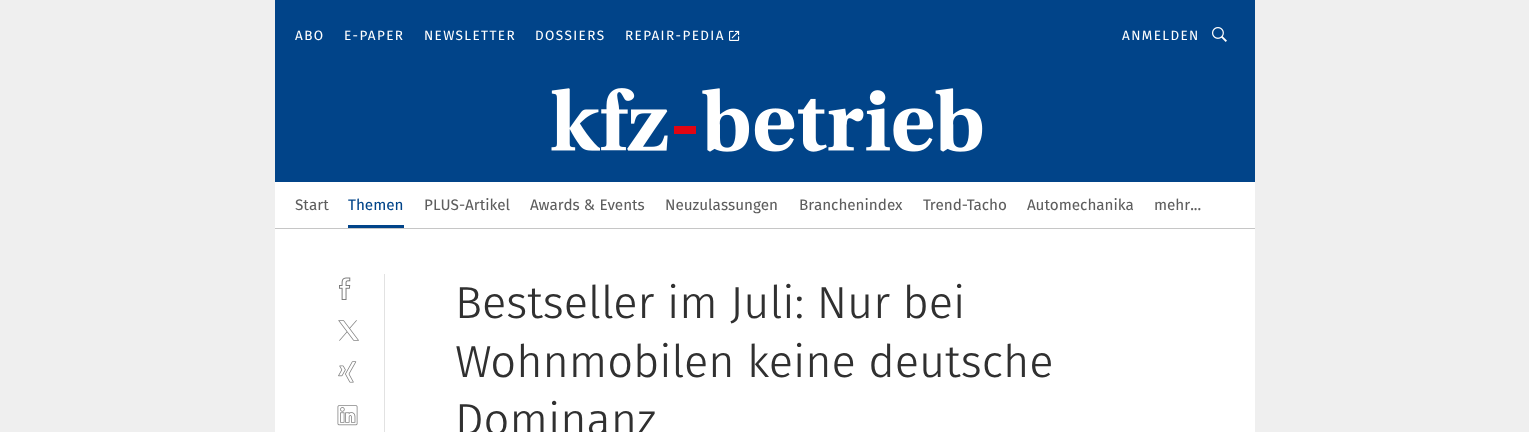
(async () => {
    const canvas = document.querySelector("canvas");
    canvas.width = 1529;
    canvas.height = 432;
    const context = canvas.getContext("2d");
    context.miterLimit = 4;
    context.fontKerning = "normal";
    function write(s, x, y, font, color) {
        context.font = font;
        context.fillStyle = color;
        context.fillText(s, x, y);
    }
    function block(x, y, w, h, color) {
        context.fillStyle = color;
        context.fillRect(x, y, w, h);
    }
    async function photo(src, x, y, w, h) {
        const img = new Image();
        img.src = src;
        await img.decode();
        context.drawImage(img, x, y, w, h);
    }

    block(0, 0, 1529, 432, "rgb(239, 239, 239)");
    block(275, 229, 980, 203, "rgb(255, 255, 255)");
    block(275, 228, 980, 1, "rgb(198, 198, 198)");
    block(275, 0, 980, 182, "rgb(1, 68, 137)");
    context.letterSpacing = "1.4px";
    write("ABO", 295, 40, "13.5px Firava", "rgb(255, 255, 255)");
    write("E-PAPER", 344, 40, "13.5px Firava", "rgb(255, 255, 255)");
    write("NEWSLETTER", 424, 40, "13.5px Firava", "rgb(255, 255, 255)");
    write("DOSSIERS", 535, 40, "13.5px Firava", "rgb(255, 255, 255)");
    write("REPAIR-PEDIA", 625, 40, "13.5px Firava", "rgb(255, 255, 255)");
    await photo("media/1.png", 729, 30, 11, 11);
    write("ANMELDEN", 1122, 40, "13.5px Firava", "rgb(255, 255, 255)");
    await photo("media/2.png", 1212, 27, 15, 15);
    await photo("media/3.png", 551, 88, 432, 64);
    block(275, 182, 980, 46, "rgb(255, 255, 255)");
    context.letterSpacing = "0px";
    write("Start", 295, 210, "15.25px 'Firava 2'", "rgb(94, 94, 94)");
    block(348, 225, 56, 3, "rgb(1, 68, 137)");
    write("Themen", 348, 210, "15.25px 'Firava 2'", "rgb(1, 68, 137)");
    write("PLUS-Artikel", 424, 210, "15.25px 'Firava 2'", "rgb(94, 94, 94)");
    write("Awards & Events", 530, 210, "15.25px 'Firava 2'", "rgb(94, 94, 94)");
    write("Neuzulassungen", 665, 210, "15.25px 'Firava 2'", "rgb(94, 94, 94)");
    write("Branchenindex", 799, 210, "15.25px 'Firava 2'", "rgb(94, 94, 94)");
    write("Trend-Tacho", 923, 210, "15.25px 'Firava 2'", "rgb(94, 94, 94)");
    write("Automechanika", 1027, 210, "15.25px 'Firava 2'", "rgb(94, 94, 94)");
    write("mehr...", 1154, 210, "15.25px 'Firava 2'", "rgb(94, 94, 94)");
    block(384, 274, 1, 158, "rgb(226, 226, 226)");
    await photo("media/4.png", 339, 277, 12, 23);
    await photo("media/5.png", 338, 320, 21, 21);
    await photo("media/6.png", 338, 361, 19, 22);
    await photo("media/7.png", 337, 405, 21, 21);
    write("Bestseller im Juli: Nur bei", 455, 318, "300 45px Firava", "rgb(48, 48, 48)");
    write("Wohnmobilen keine deutsche", 455, 377, "300 45px Firava", "rgb(48, 48, 48)");
    write("Dominanz", 455, 435, "300 45px Firava", "rgb(48, 48, 48)");
})();
